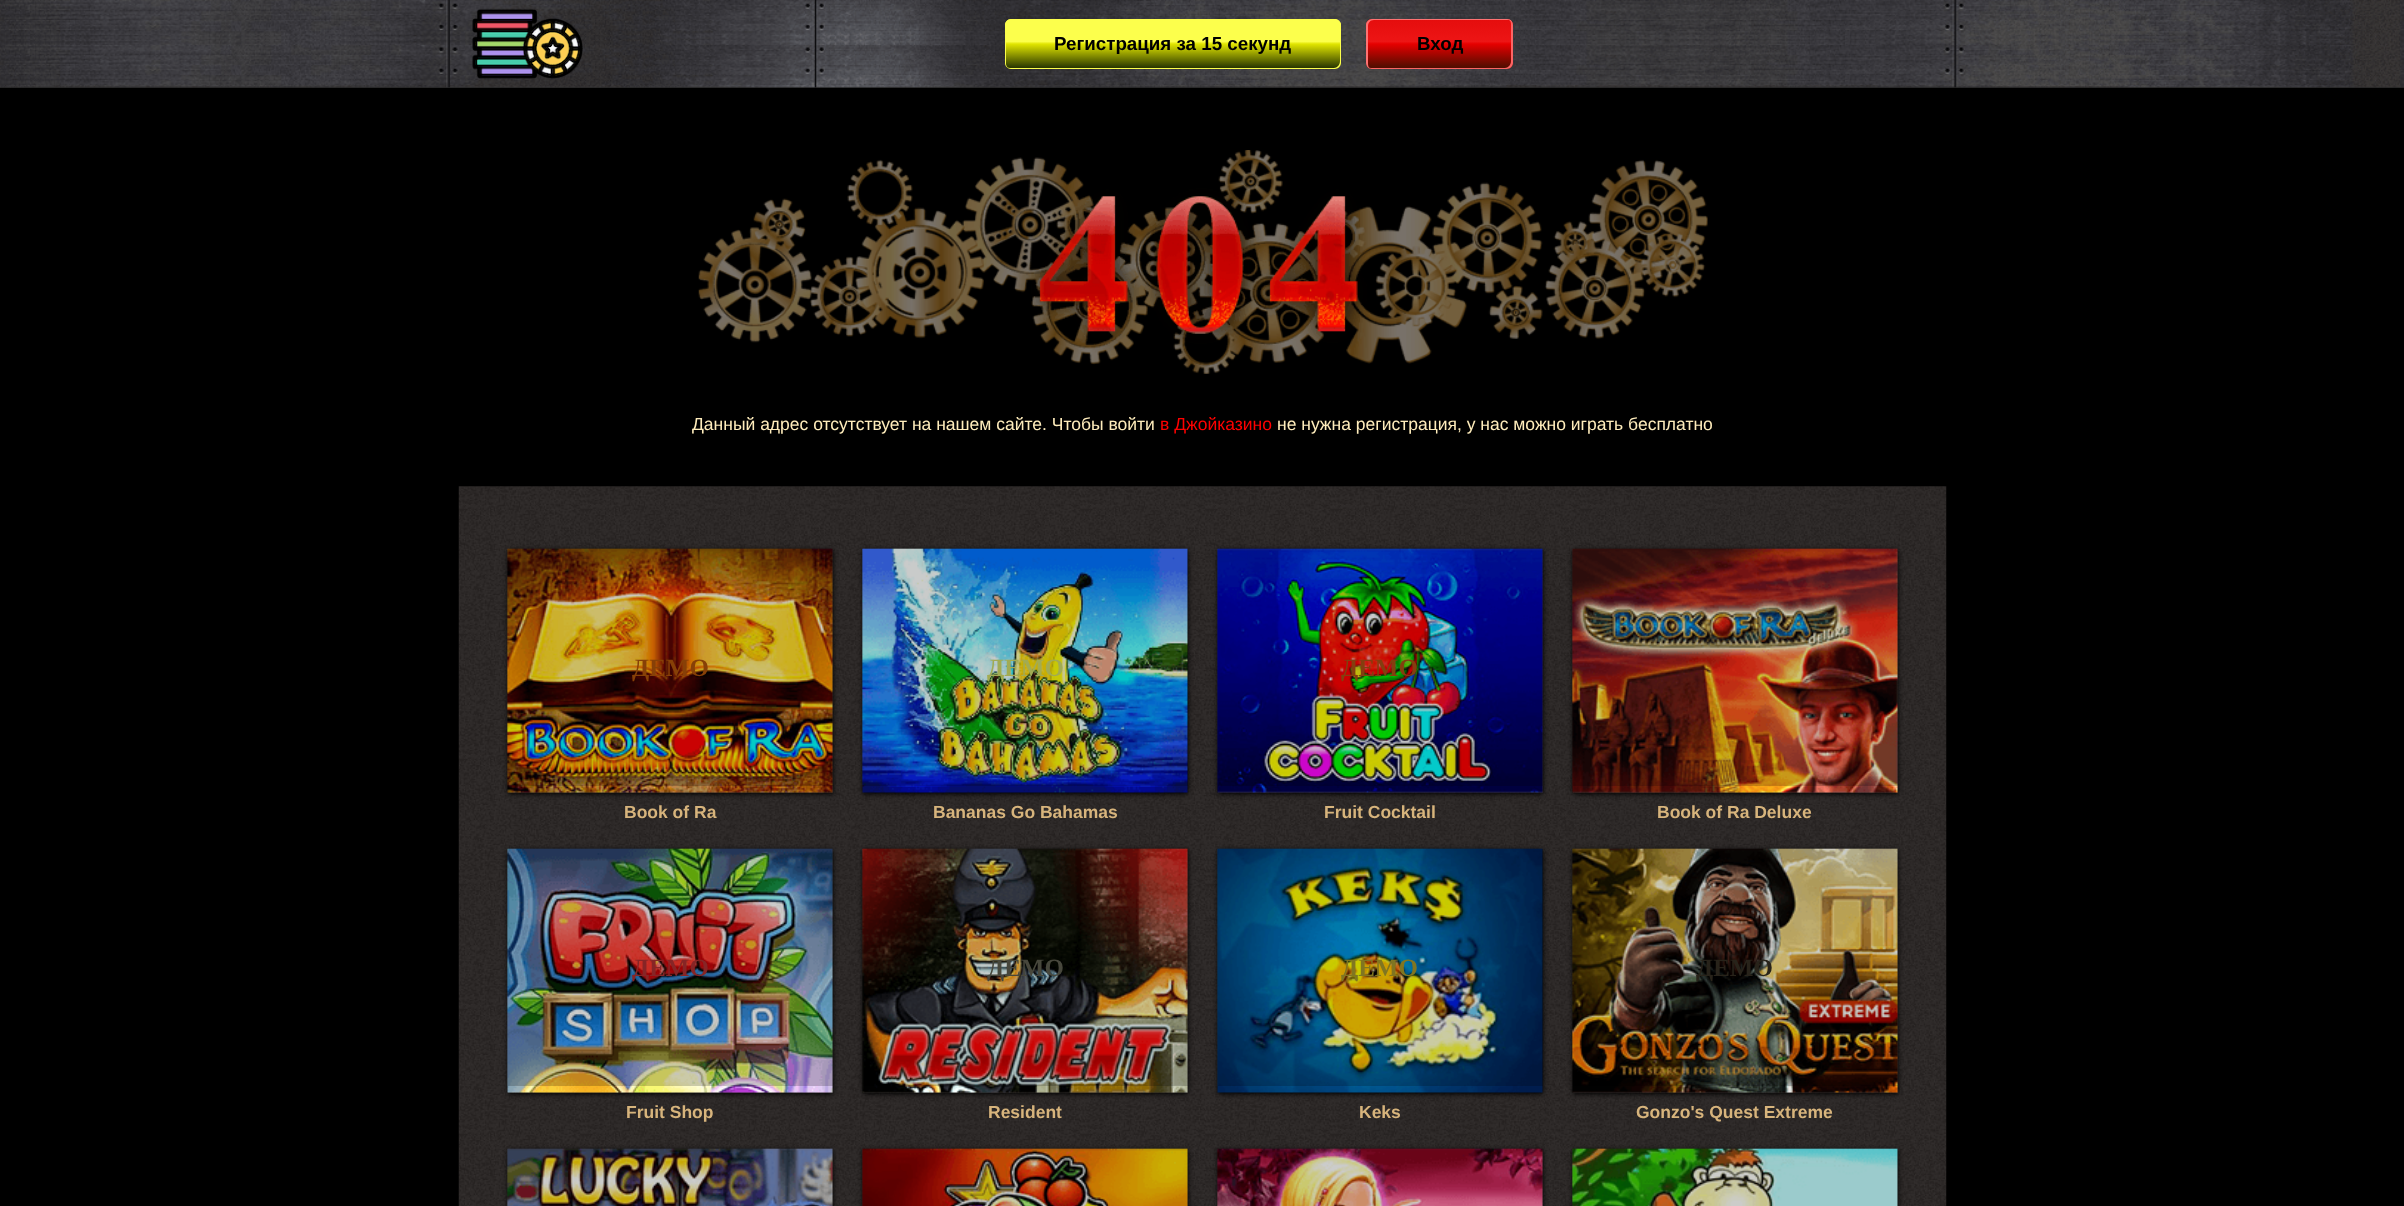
(async () => {
    const canvas = document.querySelector("canvas");
    canvas.width = 2404;
    canvas.height = 1206;
    const context = canvas.getContext("2d");
    context.miterLimit = 4;
    context.fontKerning = "normal";
    function write(s, x, y, font, color) {
        context.font = font;
        context.fillStyle = color;
        context.fillText(s, x, y);
    }
    function block(x, y, w, h, color) {
        context.fillStyle = color;
        context.fillRect(x, y, w, h);
    }
    async function photo(src, x, y, w, h) {
        const img = new Image();
        img.src = src;
        await img.decode();
        context.drawImage(img, x, y, w, h);
    }
    let gradient;

    block(0, 0, 2404, 1206, "rgb(0, 0, 0)");
    await photo("media/1.png", 0, 0, 2404, 88);
    await photo("media/2.png", 472, 8, 111, 71);
    gradient = context.createLinearGradient(1173, 19, 1173, 69);
    gradient.addColorStop(0, "rgb(252, 255, 76)");
    gradient.addColorStop(0.45, "rgb(252, 255, 76)");
    gradient.addColorStop(0.5, "rgb(225, 229, 0)");
    gradient.addColorStop(1, "rgb(31, 45, 0)");
    context.fillStyle = gradient;
    context.beginPath();
    context.roundRect(1005, 19, 336, 50, 6);
    context.fill();
    context.fillStyle = "rgb(252, 255, 76)";
    context.beginPath();
    context.moveTo(1006, 66);
    context.bezierCurveTo(1007, 68, 1009, 69, 1011, 69);
    context.lineTo(1335, 69);
    context.bezierCurveTo(1338, 69, 1341, 66, 1341, 63);
    context.lineTo(1341, 25);
    context.bezierCurveTo(1341, 23, 1340, 22, 1339, 21);
    context.bezierCurveTo(1340, 21, 1340, 23, 1340, 24);
    context.lineTo(1340, 61);
    context.bezierCurveTo(1340, 65, 1337, 68, 1334, 68);
    context.lineTo(1010, 68);
    context.bezierCurveTo(1008, 68, 1007, 67, 1006, 66);
    context.closePath();
    context.fill();
    context.beginPath();
    context.moveTo(1012, 20);
    context.lineTo(1336, 20);
    context.lineTo(1339, 21);
    context.bezierCurveTo(1338, 20, 1337, 19, 1335, 19);
    context.lineTo(1011, 19);
    context.bezierCurveTo(1008, 19, 1005, 22, 1005, 25);
    context.lineTo(1005, 63);
    context.bezierCurveTo(1005, 65, 1006, 67, 1008, 68);
    context.bezierCurveTo(1007, 67, 1006, 65, 1006, 64);
    context.lineTo(1006, 26);
    context.bezierCurveTo(1006, 23, 1009, 20, 1012, 20);
    context.closePath();
    context.fill();
    write("Регистрация за 15 секунд", 1054, 50, "bold 18.75px Liberation Sans", "rgb(0, 0, 0)");
    gradient = context.createLinearGradient(1439, 19, 1439, 69);
    gradient.addColorStop(0, "rgb(229, 13, 13)");
    gradient.addColorStop(0.45, "rgb(237, 21, 21)");
    gradient.addColorStop(0.5, "rgb(230, 0, 0)");
    gradient.addColorStop(1, "rgb(71, 14, 0)");
    context.fillStyle = gradient;
    context.beginPath();
    context.roundRect(1366, 19, 147, 50, 6);
    context.fill();
    context.fillStyle = "rgb(253, 100, 100)";
    context.beginPath();
    context.moveTo(1367, 66);
    context.bezierCurveTo(1368, 68, 1370, 69, 1372, 69);
    context.lineTo(1507, 69);
    context.bezierCurveTo(1510, 69, 1513, 66, 1513, 63);
    context.lineTo(1513, 25);
    context.bezierCurveTo(1513, 22, 1511, 20, 1509, 19);
    context.bezierCurveTo(1510, 20, 1511, 22, 1511, 24);
    context.lineTo(1511, 61);
    context.bezierCurveTo(1511, 65, 1508, 68, 1505, 68);
    context.lineTo(1371, 68);
    context.bezierCurveTo(1369, 68, 1368, 67, 1367, 66);
    context.closePath();
    context.fill();
    context.fillStyle = "rgb(255, 114, 114)";
    context.beginPath();
    context.moveTo(1374, 20);
    context.lineTo(1509, 20);
    context.lineTo(1512, 22);
    context.bezierCurveTo(1511, 20, 1509, 19, 1507, 19);
    context.lineTo(1372, 19);
    context.bezierCurveTo(1369, 19, 1366, 22, 1366, 25);
    context.lineTo(1366, 63);
    context.bezierCurveTo(1366, 66, 1368, 68, 1370, 69);
    context.bezierCurveTo(1369, 68, 1368, 66, 1368, 64);
    context.lineTo(1368, 26);
    context.bezierCurveTo(1368, 23, 1370, 20, 1374, 20);
    context.closePath();
    context.fill();
    write("Вход", 1417, 50, "bold 18.75px Liberation Sans", "rgb(0, 0, 0)");
    await photo("media/3.png", 698, 150, 1010, 224);
    write("Данный адрес отсутствует на нашем сайте. Чтобы войти", 692, 430, "17.5px Liberation Sans", "rgb(255, 237, 188)");
    write("в Джойказино", 1160, 430, "17.5px Liberation Sans", "rgb(255, 0, 0)");
    write("не нужна регистрация, у нас можно играть бесплатно", 1277, 430, "17.5px Liberation Sans", "rgb(255, 237, 188)");
    await photo("media/4.png", 458, 486, 1489, 720);
    context.save();
    context.beginPath();
    context.moveTo(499, 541);
    context.lineTo(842, 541);
    context.lineTo(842, 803);
    context.lineTo(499, 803);
    context.closePath();
    context.moveTo(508, 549);
    context.lineTo(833, 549);
    context.lineTo(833, 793);
    context.lineTo(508, 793);
    context.closePath();
    context.clip("evenodd");
    context.fillStyle = "rgb(0, 0, 0)";
    context.filter = "blur(2.5px)";
    context.beginPath();
    context.rect(508, 550, 325, 244);
    context.fill();
    context.filter = "none";
    context.restore();
    await photo("media/5.png", 507, 548, 326, 245);
    block(508, 549, 325, 237, "rgba(0, 0, 0, 0.2)");
    write("ДЕМО", 632, 676, "bold 25px Liberation Serif", "rgb(135, 64, 7)");
    write("Book of Ra", 624, 818, "bold 17.5px Liberation Sans", "rgb(215, 180, 124)");
    context.fillStyle = "rgb(0, 0, 0)";
    context.filter = "blur(2.5px)";
    context.beginPath();
    context.rect(863, 550, 325, 244);
    context.fill();
    context.filter = "none";
    await photo("media/6.png", 862, 548, 326, 245);
    block(863, 549, 325, 237, "rgba(0, 0, 0, 0.2)");
    write("ДЕМО", 987, 676, "bold 25px Liberation Serif", "rgb(162, 171, 83)");
    write("Bananas Go Bahamas", 933, 818, "bold 17.5px Liberation Sans", "rgb(215, 180, 124)");
    context.save();
    context.beginPath();
    context.moveTo(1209, 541);
    context.lineTo(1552, 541);
    context.lineTo(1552, 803);
    context.lineTo(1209, 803);
    context.closePath();
    context.moveTo(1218, 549);
    context.lineTo(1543, 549);
    context.lineTo(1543, 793);
    context.lineTo(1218, 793);
    context.closePath();
    context.clip("evenodd");
    context.fillStyle = "rgb(0, 0, 0)";
    context.filter = "blur(2.5px)";
    context.beginPath();
    context.rect(1218, 550, 325, 244);
    context.fill();
    context.filter = "none";
    context.restore();
    await photo("media/7.png", 1217, 548, 326, 245);
    block(1218, 549, 325, 237, "rgba(0, 0, 0, 0.2)");
    write("ДЕМО", 1341, 676, "bold 25px Liberation Serif", "rgb(132, 62, 15)");
    write("Fruit Cocktail", 1324, 818, "bold 17.5px Liberation Sans", "rgb(215, 180, 124)");
    context.save();
    context.beginPath();
    context.moveTo(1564, 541);
    context.lineTo(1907, 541);
    context.lineTo(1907, 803);
    context.lineTo(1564, 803);
    context.closePath();
    context.moveTo(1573, 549);
    context.lineTo(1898, 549);
    context.lineTo(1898, 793);
    context.lineTo(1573, 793);
    context.closePath();
    context.clip("evenodd");
    context.fillStyle = "rgb(0, 0, 0)";
    context.filter = "blur(2.5px)";
    context.beginPath();
    context.rect(1573, 550, 325, 244);
    context.fill();
    context.filter = "none";
    context.restore();
    await photo("media/8.png", 1572, 548, 326, 245);
    block(1573, 549, 325, 237, "rgba(0, 0, 0, 0.2)");
    write("Book of Ra Deluxe", 1657, 818, "bold 17.5px Liberation Sans", "rgb(215, 180, 124)");
    context.save();
    context.beginPath();
    context.moveTo(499, 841);
    context.lineTo(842, 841);
    context.lineTo(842, 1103);
    context.lineTo(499, 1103);
    context.closePath();
    context.moveTo(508, 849);
    context.lineTo(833, 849);
    context.lineTo(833, 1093);
    context.lineTo(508, 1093);
    context.closePath();
    context.clip("evenodd");
    context.fillStyle = "rgb(0, 0, 0)";
    context.filter = "blur(2.5px)";
    context.beginPath();
    context.rect(508, 850, 325, 244);
    context.fill();
    context.filter = "none";
    context.restore();
    await photo("media/9.png", 507, 848, 326, 245);
    block(508, 849, 325, 237, "rgba(0, 0, 0, 0.2)");
    write("ДЕМО", 632, 976, "bold 25px Liberation Serif", "rgb(135, 37, 38)");
    write("Fruit Shop", 626, 1118, "bold 17.5px Liberation Sans", "rgb(215, 180, 124)");
    context.save();
    context.beginPath();
    context.moveTo(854, 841);
    context.lineTo(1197, 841);
    context.lineTo(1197, 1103);
    context.lineTo(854, 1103);
    context.closePath();
    context.moveTo(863, 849);
    context.lineTo(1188, 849);
    context.lineTo(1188, 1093);
    context.lineTo(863, 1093);
    context.closePath();
    context.clip("evenodd");
    context.fillStyle = "rgb(0, 0, 0)";
    context.filter = "blur(2.5px)";
    context.beginPath();
    context.rect(863, 850, 325, 244);
    context.fill();
    context.filter = "none";
    context.restore();
    await photo("media/10.png", 862, 848, 326, 245);
    block(863, 849, 325, 237, "rgba(0, 0, 0, 0.2)");
    write("ДЕМО", 987, 976, "bold 25px Liberation Serif", "rgb(71, 71, 60)");
    write("Resident", 988, 1118, "bold 17.5px Liberation Sans", "rgb(215, 180, 124)");
    context.fillStyle = "rgb(0, 0, 0)";
    context.filter = "blur(2.5px)";
    context.beginPath();
    context.rect(1218, 850, 325, 244);
    context.fill();
    context.filter = "none";
    await photo("media/11.png", 1217, 848, 326, 245);
    block(1218, 849, 325, 237, "rgba(0, 0, 0, 0.2)");
    write("ДЕМО", 1341, 976, "bold 25px Liberation Serif", "rgb(128, 118, 33)");
    write("Keks", 1359, 1118, "bold 17.5px Liberation Sans", "rgb(215, 180, 124)");
    context.save();
    context.beginPath();
    context.moveTo(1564, 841);
    context.lineTo(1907, 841);
    context.lineTo(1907, 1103);
    context.lineTo(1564, 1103);
    context.closePath();
    context.moveTo(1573, 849);
    context.lineTo(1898, 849);
    context.lineTo(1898, 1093);
    context.lineTo(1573, 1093);
    context.closePath();
    context.clip("evenodd");
    context.fillStyle = "rgb(0, 0, 0)";
    context.filter = "blur(2.5px)";
    context.beginPath();
    context.rect(1573, 850, 325, 244);
    context.fill();
    context.filter = "none";
    context.restore();
    await photo("media/12.png", 1572, 848, 326, 245);
    block(1573, 849, 325, 237, "rgba(0, 0, 0, 0.2)");
    write("ДЕМО", 1696, 976, "bold 25px Liberation Serif", "rgb(40, 35, 26)");
    write("Gonzo's Quest Extreme", 1636, 1118, "bold 17.5px Liberation Sans", "rgb(215, 180, 124)");
    context.save();
    context.beginPath();
    context.moveTo(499, 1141);
    context.lineTo(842, 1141);
    context.lineTo(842, 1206);
    context.lineTo(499, 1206);
    context.closePath();
    context.moveTo(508, 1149);
    context.lineTo(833, 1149);
    context.lineTo(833, 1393);
    context.lineTo(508, 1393);
    context.closePath();
    context.clip("evenodd");
    context.fillStyle = "rgb(0, 0, 0)";
    context.filter = "blur(2.5px)";
    context.beginPath();
    context.rect(508, 1150, 325, 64);
    context.fill();
    context.filter = "none";
    context.restore();
    await photo("media/13.png", 507, 1148, 326, 58);
    block(508, 1149, 325, 57, "rgba(0, 0, 0, 0.2)");
    context.save();
    context.beginPath();
    context.moveTo(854, 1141);
    context.lineTo(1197, 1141);
    context.lineTo(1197, 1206);
    context.lineTo(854, 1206);
    context.closePath();
    context.moveTo(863, 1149);
    context.lineTo(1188, 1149);
    context.lineTo(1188, 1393);
    context.lineTo(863, 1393);
    context.closePath();
    context.clip("evenodd");
    context.fillStyle = "rgb(0, 0, 0)";
    context.filter = "blur(2.5px)";
    context.beginPath();
    context.rect(863, 1150, 325, 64);
    context.fill();
    context.filter = "none";
    context.restore();
    await photo("media/14.png", 862, 1148, 326, 58);
    block(863, 1149, 325, 57, "rgba(0, 0, 0, 0.2)");
    context.save();
    context.beginPath();
    context.moveTo(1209, 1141);
    context.lineTo(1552, 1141);
    context.lineTo(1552, 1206);
    context.lineTo(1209, 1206);
    context.closePath();
    context.moveTo(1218, 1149);
    context.lineTo(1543, 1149);
    context.lineTo(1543, 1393);
    context.lineTo(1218, 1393);
    context.closePath();
    context.clip("evenodd");
    context.fillStyle = "rgb(0, 0, 0)";
    context.filter = "blur(2.5px)";
    context.beginPath();
    context.rect(1218, 1150, 325, 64);
    context.fill();
    context.filter = "none";
    context.restore();
    await photo("media/15.png", 1217, 1148, 326, 58);
    block(1218, 1149, 325, 57, "rgba(0, 0, 0, 0.2)");
    context.fillStyle = "rgb(0, 0, 0)";
    context.filter = "blur(2.5px)";
    context.beginPath();
    context.rect(1573, 1150, 325, 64);
    context.fill();
    context.filter = "none";
    await photo("media/16.png", 1572, 1148, 326, 58);
    block(1573, 1149, 325, 57, "rgba(0, 0, 0, 0.2)");
})();
